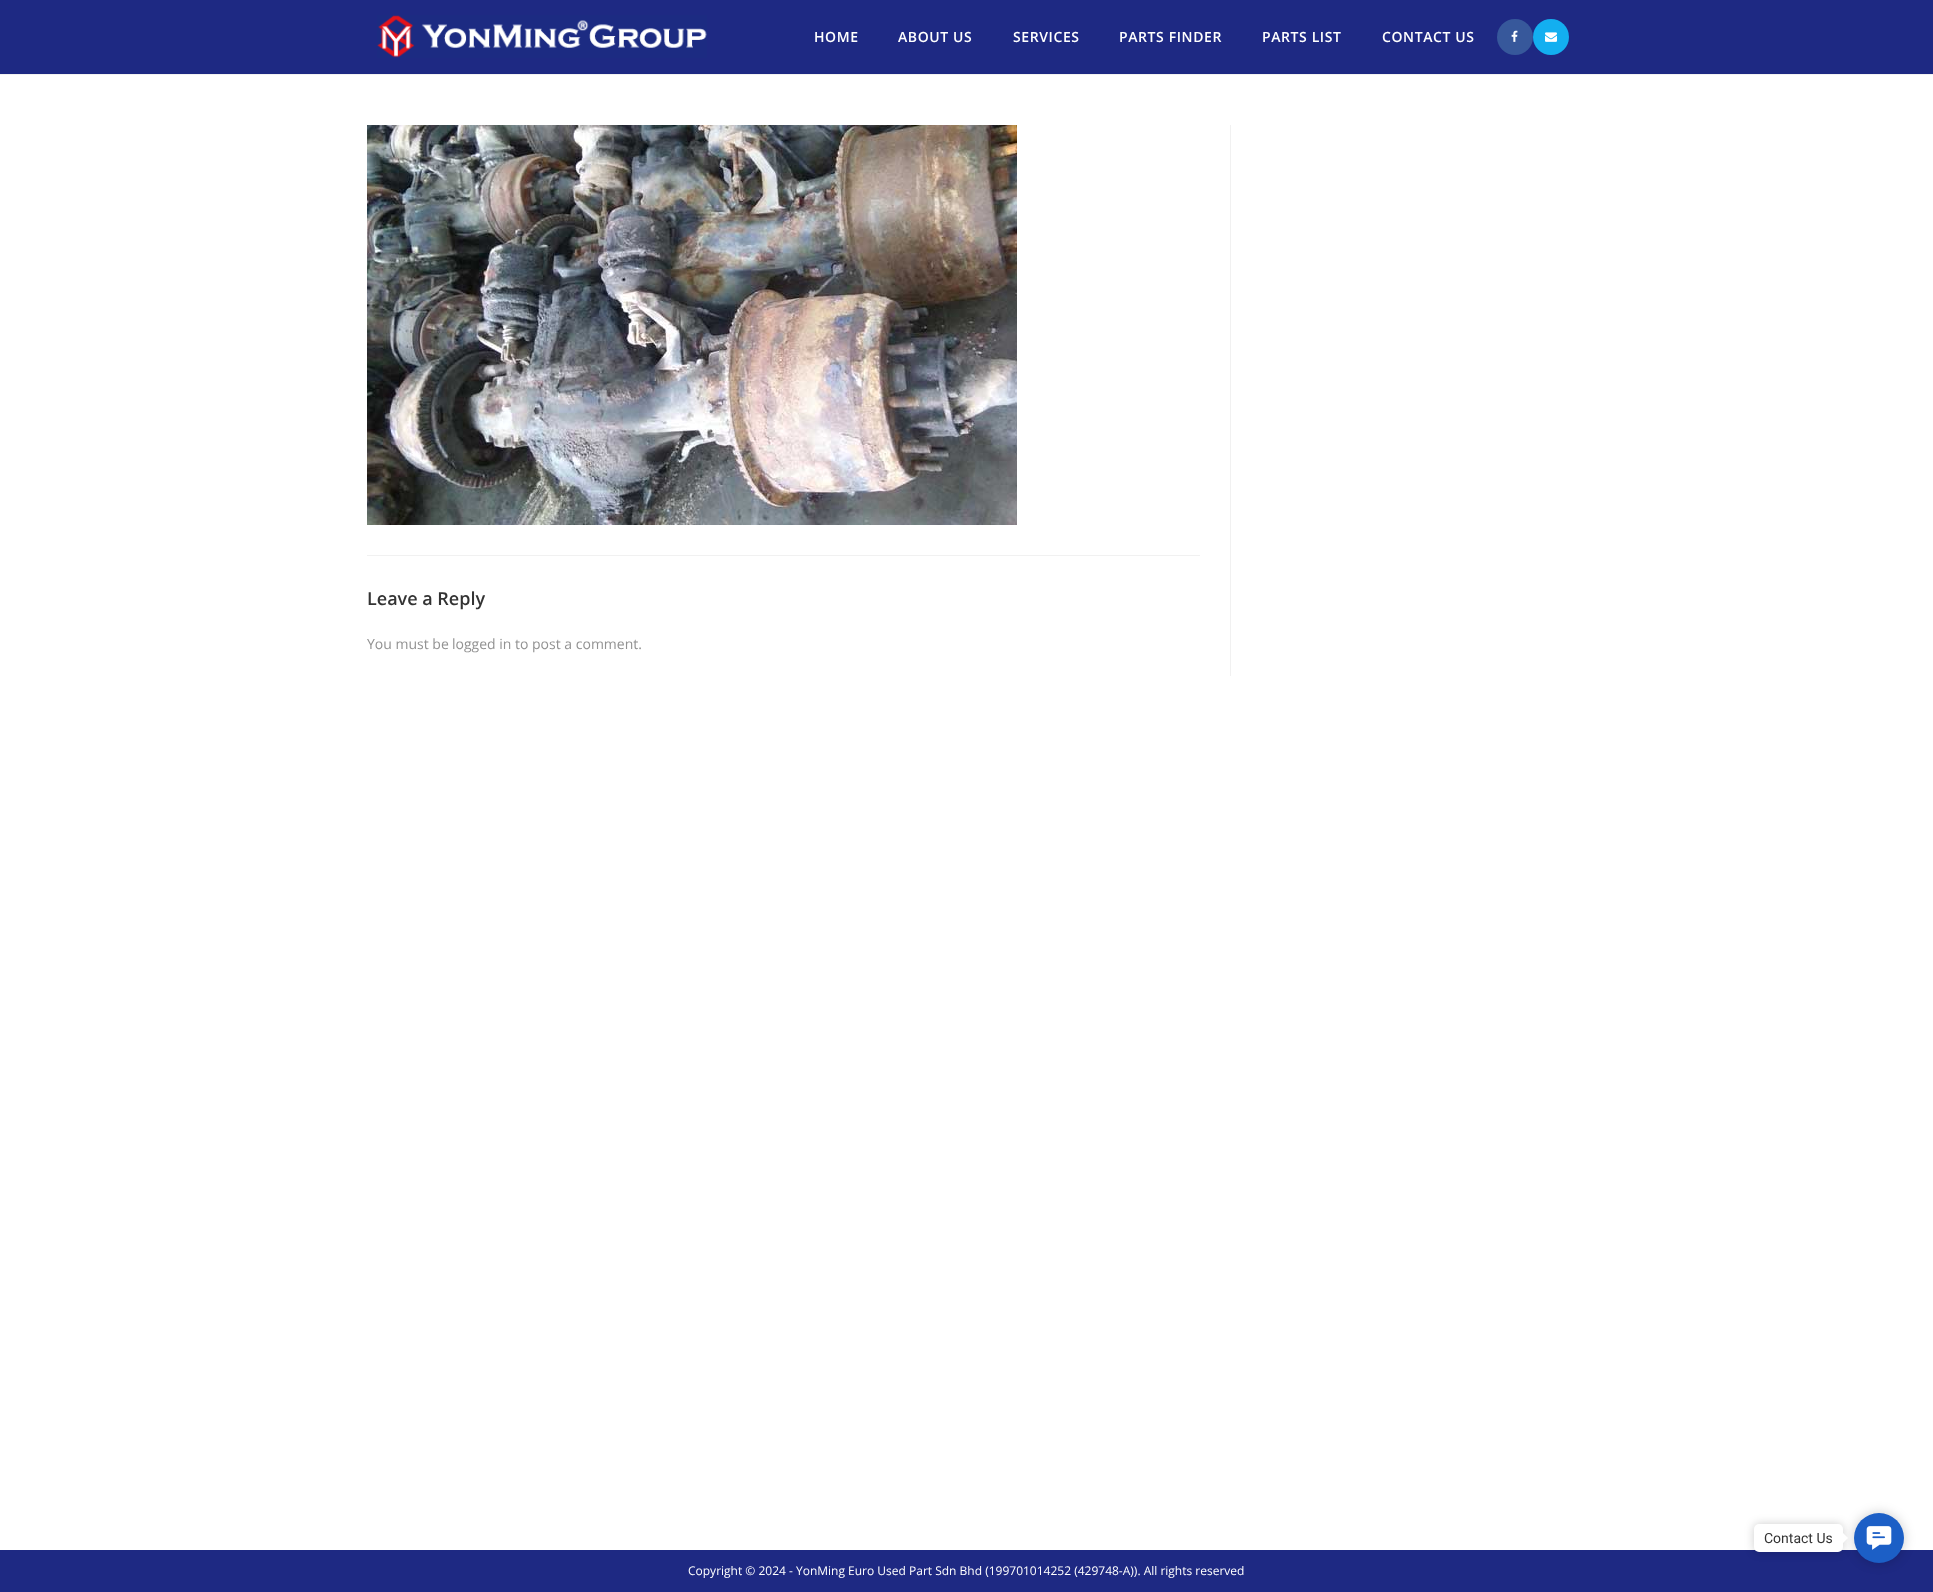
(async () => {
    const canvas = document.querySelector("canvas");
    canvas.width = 1933;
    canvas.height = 1592;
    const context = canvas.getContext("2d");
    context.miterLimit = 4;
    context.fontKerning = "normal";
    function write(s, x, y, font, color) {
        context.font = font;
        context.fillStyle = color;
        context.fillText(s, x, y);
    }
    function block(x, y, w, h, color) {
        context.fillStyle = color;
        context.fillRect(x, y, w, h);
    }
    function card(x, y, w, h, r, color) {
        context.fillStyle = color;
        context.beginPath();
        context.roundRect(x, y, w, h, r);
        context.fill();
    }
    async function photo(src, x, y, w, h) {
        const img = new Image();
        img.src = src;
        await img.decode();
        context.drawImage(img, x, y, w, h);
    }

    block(0, 0, 1933, 1592, "rgb(255, 255, 255)");
    block(0, 0, 1933, 74, "rgb(30, 41, 131)");
    block(0, 74, 1933, 1, "rgb(241, 241, 241)");
    await photo("media/1.png", 377, 15, 330, 43);
    context.letterSpacing = "0.6px";
    write("HOME", 814, 42, "600 14px Open Sans", "rgb(255, 255, 255)");
    write("ABOUT US", 898, 42, "600 14px Open Sans", "rgb(255, 255, 255)");
    write("SERVICES", 1013, 42, "600 14px Open Sans", "rgb(255, 255, 255)");
    write("PARTS FINDER", 1119, 42, "600 14px Open Sans", "rgb(255, 255, 255)");
    write("PARTS LIST", 1262, 42, "600 14px Open Sans", "rgb(255, 255, 255)");
    write("CONTACT US", 1382, 42, "600 14px Open Sans", "rgb(255, 255, 255)");
    context.fillStyle = "rgb(55, 88, 155)";
    context.beginPath();
    context.arc(1515, 37, 18, 0, Math.PI * 2);
    context.fill();
    await photo("media/2.png", 1511, 30, 7, 12);
    context.fillStyle = "rgb(19, 175, 240)";
    context.beginPath();
    context.arc(1551, 37, 18, 0, Math.PI * 2);
    context.fill();
    await photo("media/3.png", 1545, 32, 12, 10);
    block(1230, 125, 1, 551, "rgb(241, 241, 241)");
    await photo("media/4.png", 367, 125, 650, 400);
    block(367, 555, 833, 1, "rgb(241, 241, 241)");
    context.letterSpacing = "0px";
    write("Leave a Reply", 367, 605, "600 18px Open Sans", "rgb(51, 51, 51)");
    write("You must be", 367, 649, "14px Open Sans", "rgb(146, 146, 146)");
    write("logged in", 452, 649, "14px Open Sans", "rgb(146, 146, 146)");
    write("to post a comment.", 515, 649, "14px Open Sans", "rgb(146, 146, 146)");
    block(0, 1550, 1933, 42, "rgb(30, 41, 131)");
    write("Copyright © 2024 - YonMing Euro Used Part Sdn Bhd (199701014252 (429748-A)). All rights reserved", 688, 1575, "12px Open Sans", "rgb(255, 255, 255)");
    context.fillStyle = "rgba(0, 0, 0, 0.2)";
    context.filter = "blur(6px)";
    context.beginPath();
    context.roundRect(1854, 1513, 50, 50, 25);
    context.fill();
    context.filter = "none";
    context.fillStyle = "rgb(28, 95, 198)";
    context.beginPath();
    context.arc(1879, 1538, 25, 0, Math.PI * 2);
    context.fill();
    context.fillStyle = "rgba(0, 0, 0, 0.2)";
    context.filter = "blur(5px)";
    context.beginPath();
    context.roundRect(1754, 1524, 89, 28, 5);
    context.fill();
    context.filter = "none";
    card(1754, 1524, 89, 28, 5, "rgb(255, 255, 255)");
    write("Contact Us", 1764, 1543, "14px Roboto", "rgb(51, 51, 51)");
    await photo("media/5.png", 1866, 1526, 26, 24);
    context.fillStyle = "rgb(255, 255, 255)";
    context.beginPath();
    context.moveTo(1843, 1543);
    context.lineTo(1843, 1533);
    context.lineTo(1848, 1538);
    context.closePath();
    context.fill();
})();
